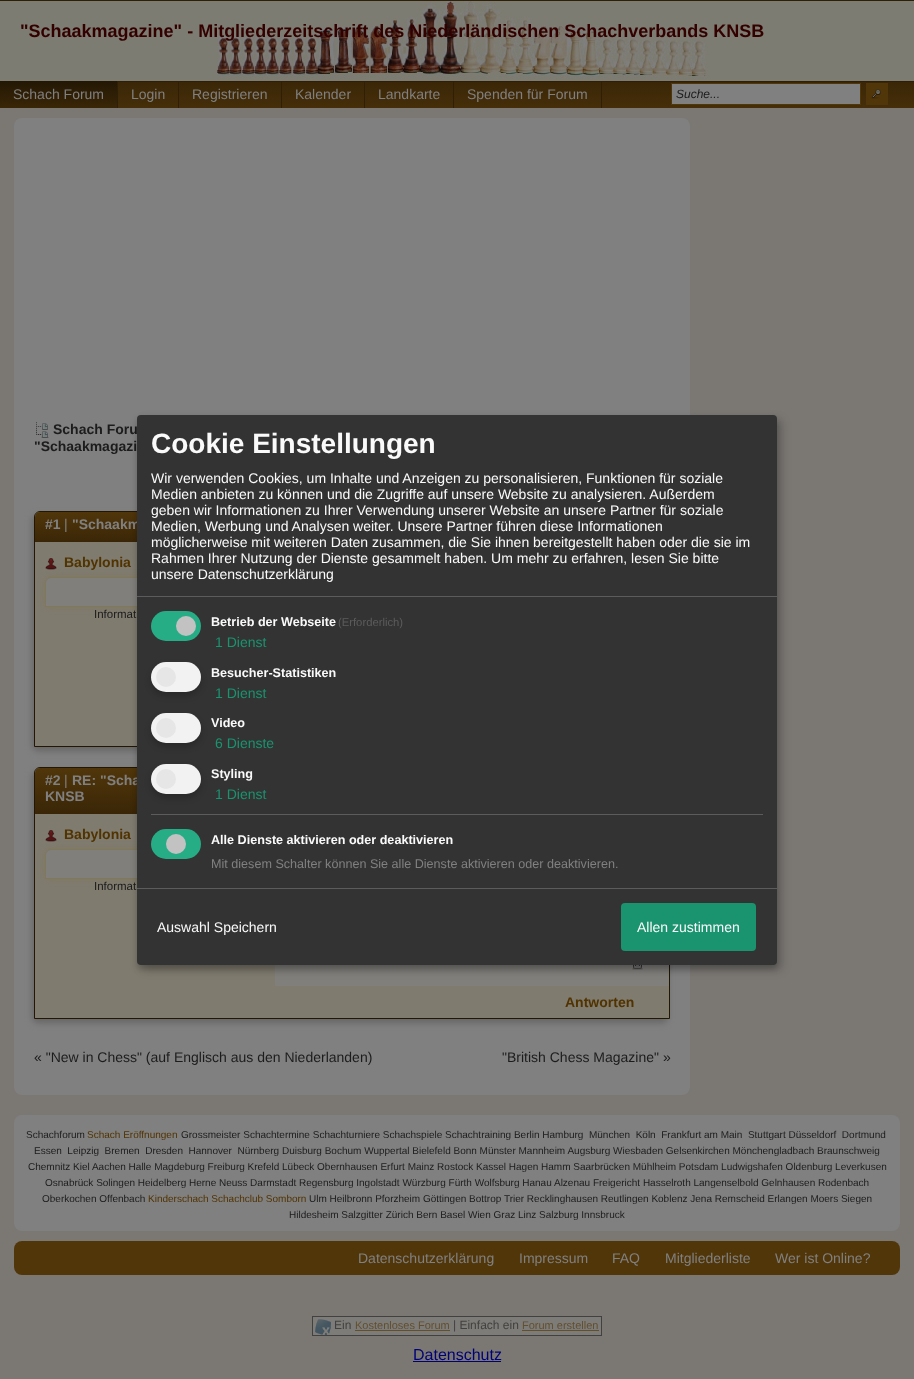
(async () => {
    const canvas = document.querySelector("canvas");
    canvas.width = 914;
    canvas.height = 1379;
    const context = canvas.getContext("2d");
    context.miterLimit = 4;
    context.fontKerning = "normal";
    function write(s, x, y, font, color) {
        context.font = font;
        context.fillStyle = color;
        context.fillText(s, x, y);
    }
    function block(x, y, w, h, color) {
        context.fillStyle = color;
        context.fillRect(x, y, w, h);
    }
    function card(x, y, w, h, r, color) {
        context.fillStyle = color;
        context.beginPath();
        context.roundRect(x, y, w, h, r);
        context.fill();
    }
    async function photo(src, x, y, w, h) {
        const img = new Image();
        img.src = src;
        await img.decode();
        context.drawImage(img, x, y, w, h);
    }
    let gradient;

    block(0, 0, 914, 1379, "rgb(123, 120, 116)");
    block(0, 0, 914, 1, "rgb(46, 31, 6)");
    await photo("media/1.png", 0, 1, 914, 80);
    write("\"Schaakmagazine\" - Mitgliederzeitschrift des Niederländischen Schachverbands KNSB", 20, 37, "bold 18px Liberation Sans", "rgb(51, 0, 0)");
    gradient = context.createLinearGradient(0, 81, 0, 108);
    gradient.addColorStop(0, "rgb(58, 38, 7)");
    gradient.addColorStop(1, "rgb(69, 46, 9)");
    context.fillStyle = gradient;
    context.fillRect(118, 82, 796, 26);
    block(118, 81, 796, 1, "rgb(46, 31, 6)");
    gradient = context.createLinearGradient(0, 81, 0, 108);
    gradient.addColorStop(0, "rgb(35, 23, 4)");
    gradient.addColorStop(1, "rgb(58, 38, 7)");
    context.fillStyle = gradient;
    context.fillRect(0, 81, 117, 27);
    block(117, 81, 1, 27, "rgb(46, 31, 6)");
    write("Schach Forum", 13, 99, "14px Liberation Sans", "rgb(128, 128, 128)");
    write("Login", 131, 99, "14px Liberation Sans", "rgb(128, 128, 128)");
    block(178, 81, 1, 27, "rgb(46, 31, 6)");
    write("Registrieren", 192, 99, "14px Liberation Sans", "rgb(128, 128, 128)");
    block(281, 81, 1, 27, "rgb(46, 31, 6)");
    write("Kalender", 295, 99, "14px Liberation Sans", "rgb(128, 128, 128)");
    block(364, 81, 1, 27, "rgb(46, 31, 6)");
    write("Landkarte", 378, 99, "14px Liberation Sans", "rgb(128, 128, 128)");
    block(601, 81, 1, 27, "rgb(46, 31, 6)");
    block(453, 81, 1, 27, "rgb(46, 31, 6)");
    write("Spenden für Forum", 467, 99, "14px Liberation Sans", "rgb(128, 128, 128)");
    context.beginPath();
    context.rect(671.5, 83.5, 189, 21);
    context.fill();
    context.strokeStyle = "rgb(81, 54, 10)";
    context.stroke();
    write("Suche...", 676, 98, "italic 12px Liberation Sans", "rgb(28, 28, 28)");
    block(866, 83, 22, 22, "rgb(81, 54, 10)");
    await photo("media/2.png", 871, 89, 10, 10);
    card(14, 118, 676, 977, 8, "rgb(128, 128, 128)");
    await photo("media/3.png", 36, 422, 13, 16);
    write("Schach Foru", 53, 434, "bold 14px Liberation Sans", "rgb(28, 28, 28)");
    write("\"Schaakmagazi", 34, 451, "bold 14px Liberation Sans", "rgb(28, 28, 28)");
    context.fillStyle = "rgb(102, 102, 102)";
    context.filter = "blur(3px)";
    context.beginPath();
    context.roundRect(32, 515, 636, 236, 6);
    context.fill();
    context.filter = "none";
    context.beginPath();
    context.roundRect(34.5, 511.5, 635, 235, [5.5, 5.5, 0, 0]);
    context.strokeStyle = "rgb(35, 23, 4)";
    context.stroke();
    gradient = context.createLinearGradient(35, 512, 35, 542);
    gradient.addColorStop(0, "rgb(81, 54, 10)");
    gradient.addColorStop(1, "rgb(58, 38, 7)");
    context.fillStyle = gradient;
    context.beginPath();
    context.roundRect(35, 512, 634, 30, [5, 5, 0, 0]);
    context.fill();
    write("#1", 45, 529, "bold 14px Liberation Sans", "rgb(128, 128, 128)");
    write("|", 64, 529, "14px Liberation Sans", "rgb(128, 128, 128)");
    write("\"Schaakm", 72, 529, "bold 14px Liberation Sans", "rgb(128, 128, 128)");
    block(35, 542, 102, 204, "rgb(127, 123, 111)");
    await photo("media/4.png", 45, 558, 12, 12);
    write("Babylonia", 64, 567, "bold 14px Liberation Sans", "rgb(81, 51, 0)");
    context.fillStyle = "rgb(128, 119, 93)";
    context.filter = "blur(3px)";
    context.beginPath();
    context.roundRect(45, 577, 220, 30, 6);
    context.fill();
    context.filter = "none";
    context.fillStyle = "rgb(128, 127, 124)";
    context.beginPath();
    context.roundRect(45.5, 577.5, 219, 29, [5.5, 5.5, 0, 0]);
    context.fill();
    context.strokeStyle = "rgb(128, 119, 93)";
    context.stroke();
    write("Informat", 94, 618, "11.5px Liberation Sans", "rgb(28, 28, 28)");
    context.fillStyle = "rgb(102, 102, 102)";
    context.filter = "blur(3px)";
    context.beginPath();
    context.roundRect(32, 771, 636, 252, 6);
    context.fill();
    context.filter = "none";
    context.beginPath();
    context.roundRect(34.5, 767.5, 635, 251, [5.5, 5.5, 0, 0]);
    context.strokeStyle = "rgb(35, 23, 4)";
    context.stroke();
    gradient = context.createLinearGradient(35, 768, 35, 814);
    gradient.addColorStop(0, "rgb(81, 54, 10)");
    gradient.addColorStop(1, "rgb(58, 38, 7)");
    context.fillStyle = gradient;
    context.beginPath();
    context.roundRect(35, 768, 634, 46, [5, 5, 0, 0]);
    context.fill();
    write("#2", 45, 785, "bold 14px Liberation Sans", "rgb(128, 128, 128)");
    write("|", 64, 785, "14px Liberation Sans", "rgb(128, 128, 128)");
    write("RE: \"Scha", 72, 785, "bold 14px Liberation Sans", "rgb(128, 128, 128)");
    write("KNSB", 45, 801, "bold 14px Liberation Sans", "rgb(128, 128, 128)");
    block(275, 965, 394, 21, "rgb(128, 127, 124)");
    block(35, 814, 240, 172, "rgb(127, 123, 111)");
    await photo("media/4.png", 45, 830, 12, 12);
    write("Babylonia", 64, 839, "bold 14px Liberation Sans", "rgb(81, 51, 0)");
    context.fillStyle = "rgb(128, 119, 93)";
    context.filter = "blur(3px)";
    context.beginPath();
    context.roundRect(45, 849, 220, 30, 6);
    context.fill();
    context.filter = "none";
    context.fillStyle = "rgb(128, 127, 124)";
    context.beginPath();
    context.roundRect(45.5, 849.5, 219, 29, [5.5, 5.5, 0, 0]);
    context.fill();
    context.strokeStyle = "rgb(128, 119, 93)";
    context.stroke();
    write("Informat", 94, 890, "11.5px Liberation Sans", "rgb(28, 28, 28)");
    block(35, 986, 634, 32, "rgb(127, 123, 111)");
    write("Antworten", 565, 1007, "bold 14px Liberation Sans", "rgb(81, 51, 0)");
    await photo("media/5.png", 632, 965, 11, 5);
    write("« \"New in Chess\" (auf Englisch aus den Niederlanden)", 34, 1062, "14px Liberation Sans", "rgb(28, 28, 28)");
    write("\"British Chess Magazine\" »", 502, 1062, "14px Liberation Sans", "rgb(28, 28, 28)");
    context.fillStyle = "rgba(0, 0, 0, 0.19)";
    context.filter = "blur(5px)";
    context.beginPath();
    context.roundRect(142, 420, 640, 550, 4);
    context.fill();
    context.filter = "none";
    context.fillStyle = "rgba(0, 0, 0, 0.2)";
    context.filter = "blur(3px)";
    context.beginPath();
    context.roundRect(137, 419, 640, 550, 4);
    context.fill();
    context.filter = "none";
    card(137, 415, 640, 550, 4, "rgb(51, 51, 51)");
    block(137, 596, 640, 1, "rgb(92, 92, 92)");
    write("Cookie Einstellungen", 151, 453, "bold 28px Liberation Sans", "rgb(250, 250, 250)");
    write("Wir verwenden Cookies, um Inhalte und Anzeigen zu personalisieren, Funktionen für soziale", 151, 483, "14px Liberation Sans", "rgb(250, 250, 250)");
    write("Medien anbieten zu können und die Zugriffe auf unsere Website zu analysieren. Außerdem", 151, 499, "14px Liberation Sans", "rgb(250, 250, 250)");
    write("geben wir Informationen zu Ihrer Verwendung unserer Website an unsere Partner für soziale", 151, 515, "14px Liberation Sans", "rgb(250, 250, 250)");
    write("Medien, Werbung und Analysen weiter. Unsere Partner führen diese Informationen", 151, 531, "14px Liberation Sans", "rgb(250, 250, 250)");
    write("möglicherweise mit weiteren Daten zusammen, die Sie ihnen bereitgestellt haben oder die sie im", 151, 547, "14px Liberation Sans", "rgb(250, 250, 250)");
    write("Rahmen Ihrer Nutzung der Dienste gesammelt haben. Um mehr zu erfahren, lesen Sie bitte", 151, 563, "14px Liberation Sans", "rgb(250, 250, 250)");
    write("unsere Datenschutzerklärung", 151, 579, "14px Liberation Sans", "rgb(250, 250, 250)");
    card(151, 611, 50, 30, 15, "rgb(39, 173, 133)");
    context.fillStyle = "rgb(194, 194, 194)";
    context.beginPath();
    context.arc(186, 626, 10, 0, Math.PI * 2);
    context.fill();
    write("Betrieb der Webseite", 211, 626, "bold 12.6px Liberation Sans", "rgb(250, 250, 250)");
    write("(Erforderlich)", 338, 626, "11.25px Liberation Sans", "rgb(92, 92, 92)");
    write("1 Dienst", 215, 647, "14px Liberation Sans", "rgb(26, 147, 111)");
    context.fillStyle = "rgba(0, 0, 0, 0.2)";
    context.filter = "blur(3px)";
    context.beginPath();
    context.roundRect(151, 666, 50, 30, 15);
    context.fill();
    context.filter = "none";
    card(151, 662, 50, 30, 15, "rgb(242, 242, 242)");
    context.fillStyle = "rgb(230, 230, 230)";
    context.beginPath();
    context.arc(166, 677, 10, 0, Math.PI * 2);
    context.fill();
    write("Besucher-Statistiken", 211, 677, "bold 12.6px Liberation Sans", "rgb(250, 250, 250)");
    write("1 Dienst", 215, 698, "14px Liberation Sans", "rgb(26, 147, 111)");
    context.fillStyle = "rgba(0, 0, 0, 0.2)";
    context.filter = "blur(3px)";
    context.beginPath();
    context.roundRect(151, 717, 50, 30, 15);
    context.fill();
    context.filter = "none";
    card(151, 713, 50, 30, 15, "rgb(242, 242, 242)");
    context.fillStyle = "rgb(230, 230, 230)";
    context.beginPath();
    context.arc(166, 728, 10, 0, Math.PI * 2);
    context.fill();
    write("Video", 211, 727, "bold 12.6px Liberation Sans", "rgb(250, 250, 250)");
    write("6 Dienste", 215, 748, "14px Liberation Sans", "rgb(26, 147, 111)");
    context.fillStyle = "rgba(0, 0, 0, 0.2)";
    context.filter = "blur(3px)";
    context.beginPath();
    context.roundRect(151, 768, 50, 30, 15);
    context.fill();
    context.filter = "none";
    card(151, 764, 50, 30, 15, "rgb(242, 242, 242)");
    context.fillStyle = "rgb(230, 230, 230)";
    context.beginPath();
    context.arc(166, 779, 10, 0, Math.PI * 2);
    context.fill();
    write("Styling", 211, 778, "bold 12.6px Liberation Sans", "rgb(250, 250, 250)");
    write("1 Dienst", 215, 799, "14px Liberation Sans", "rgb(26, 147, 111)");
    block(151, 814, 612, 1, "rgb(92, 92, 92)");
    card(151, 829, 50, 30, 15, "rgb(39, 173, 133)");
    context.fillStyle = "rgb(194, 194, 194)";
    context.beginPath();
    context.arc(176, 844, 10, 0, Math.PI * 2);
    context.fill();
    write("Alle Dienste aktivieren oder deaktivieren", 211, 844, "bold 12.6px Liberation Sans", "rgb(250, 250, 250)");
    write("Mit diesem Schalter können Sie alle Dienste aktivieren oder deaktivieren.", 211, 868, "12.6px Liberation Sans", "rgb(128, 128, 128)");
    block(137, 888, 640, 1, "rgb(92, 92, 92)");
    write("Auswahl Speichern", 157, 932, "14px Liberation Sans", "rgb(250, 250, 250)");
    card(621, 903, 135, 48, 4, "rgb(26, 147, 111)");
    write("Allen zustimmen", 637, 932, "14px Liberation Sans", "rgb(250, 250, 250)");
    card(14, 1115, 886, 116, 8, "rgb(128, 128, 128)");
    write("Schachforum", 26, 1138, "10px Liberation Sans", "rgb(28, 28, 28)");
    write("Schach Eröffnungen", 87, 1138, "10px Liberation Sans", "rgb(81, 51, 0)");
    write("Grossmeister Schachtermine Schachturniere Schachspiele Schachtraining Berlin Hamburg  München  Köln  Frankfurt am Main  Stuttgart Düsseldorf  Dortmund", 181, 1138, "10px Liberation Sans", "rgb(28, 28, 28)");
    write("Essen  Leipzig  Bremen  Dresden  Hannover  Nürnberg Duisburg Bochum Wuppertal Bielefeld Bonn Münster Mannheim Augsburg Wiesbaden Gelsenkirchen Mönchengladbach Braunschweig", 34, 1154, "10px Liberation Sans", "rgb(28, 28, 28)");
    write("Chemnitz Kiel Aachen Halle Magdeburg Freiburg Krefeld Lübeck Obernhausen Erfurt Mainz Rostock Kassel Hagen Hamm Saarbrücken Mühlheim Potsdam Ludwigshafen Oldenburg Leverkusen", 28, 1170, "10px Liberation Sans", "rgb(28, 28, 28)");
    write("Osnabrück Solingen Heidelberg Herne Neuss Darmstadt Regensburg Ingolstadt Würzburg Fürth Wolfsburg Hanau Alzenau Freigericht Hasselroth Langenselbold Gelnhausen Rodenbach", 45, 1186, "10px Liberation Sans", "rgb(28, 28, 28)");
    write("Oberkochen Offenbach", 42, 1202, "10px Liberation Sans", "rgb(28, 28, 28)");
    write("Kinderschach Schachclub Somborn", 148, 1202, "10px Liberation Sans", "rgb(81, 51, 0)");
    write("Ulm Heilbronn Pforzheim Göttingen Bottrop Trier Recklinghausen Reutlingen Koblenz Jena Remscheid Erlangen Moers Siegen", 309, 1202, "10px Liberation Sans", "rgb(28, 28, 28)");
    write("Hildesheim Salzgitter Zürich Bern Basel Wien Graz Linz Salzburg Innsbruck", 289, 1218, "10px Liberation Sans", "rgb(28, 28, 28)");
    card(14, 1241, 886, 34, 8, "rgb(81, 54, 10)");
    write("Datenschutzerklärung", 358, 1263, "14px Liberation Sans", "rgb(128, 128, 128)");
    write("Impressum", 519, 1263, "14px Liberation Sans", "rgb(128, 128, 128)");
    write("FAQ", 612, 1263, "14px Liberation Sans", "rgb(128, 128, 128)");
    write("Mitgliederliste", 665, 1263, "14px Liberation Sans", "rgb(128, 128, 128)");
    write("Wer ist Online?", 775, 1263, "14px Liberation Sans", "rgb(128, 128, 128)");
    card(312, 1316, 290, 20, 5, "rgb(126, 124, 121)");
    block(312, 1316, 290, 1, "rgb(66, 65, 63)");
    block(601, 1316, 1, 20, "rgb(66, 65, 63)");
    block(312, 1335, 290, 1, "rgb(66, 65, 63)");
    block(312, 1316, 1, 20, "rgb(66, 65, 63)");
    await photo("media/6.png", 315, 1319, 16, 16);
    write("Ein", 334, 1329, "12px Liberation Sans", "rgb(66, 65, 63)");
    write("Kostenloses Forum", 355, 1329, "11px Liberation Sans", "rgb(98, 79, 46)");
    block(355, 1330, 95, 1, "rgb(98, 79, 46)");
    write("| Einfach ein", 453, 1329, "12px Liberation Sans", "rgb(66, 65, 63)");
    write("Forum erstellen", 522, 1329, "11px Liberation Sans", "rgb(98, 79, 46)");
    block(522, 1330, 77, 1, "rgb(98, 79, 46)");
    write("Datenschutz", 413, 1360, "16px Liberation Sans", "rgb(0, 0, 119)");
    block(413, 1361, 88, 1, "rgb(0, 0, 119)");
})();
